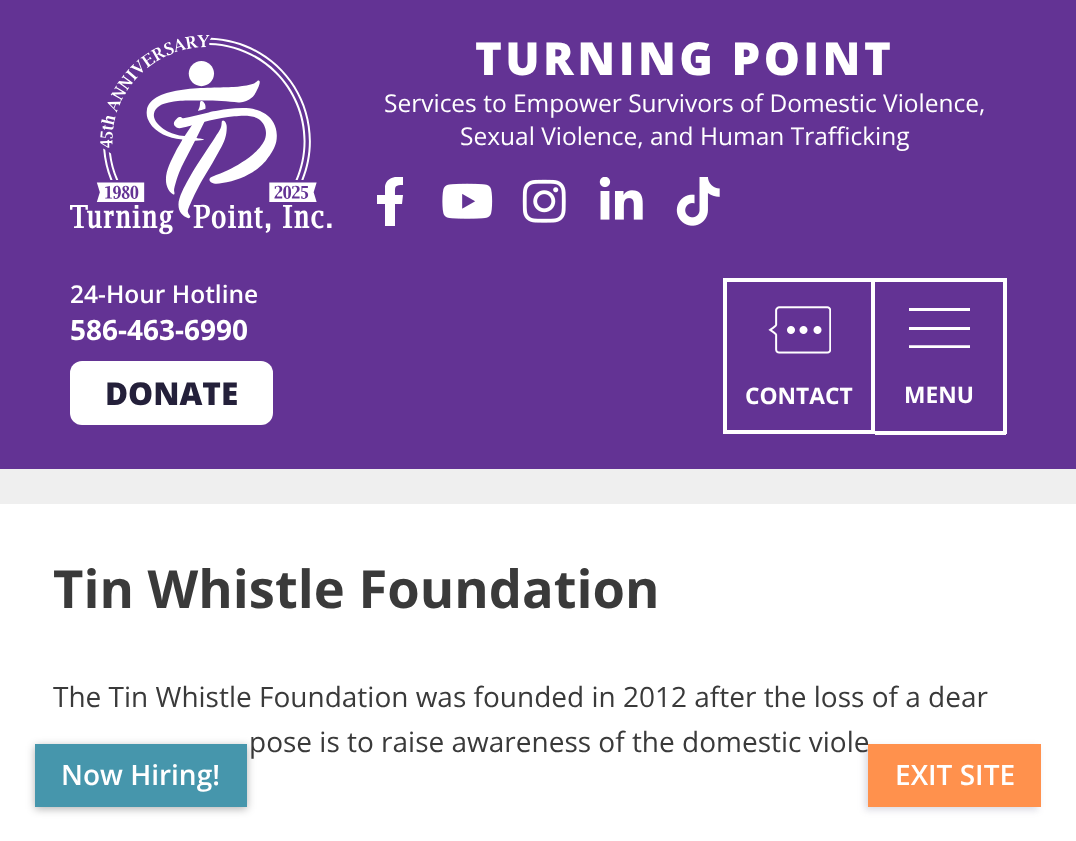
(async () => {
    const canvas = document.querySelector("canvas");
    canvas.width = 1076;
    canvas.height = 841;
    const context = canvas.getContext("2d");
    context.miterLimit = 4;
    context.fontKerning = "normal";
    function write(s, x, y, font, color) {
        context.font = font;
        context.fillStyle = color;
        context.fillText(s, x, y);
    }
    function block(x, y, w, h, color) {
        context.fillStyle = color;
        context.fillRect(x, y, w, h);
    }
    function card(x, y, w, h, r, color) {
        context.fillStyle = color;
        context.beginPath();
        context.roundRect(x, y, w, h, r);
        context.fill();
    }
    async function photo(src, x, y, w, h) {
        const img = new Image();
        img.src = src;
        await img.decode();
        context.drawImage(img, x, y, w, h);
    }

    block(0, 0, 1076, 841, "rgb(239, 239, 239)");
    block(0, 0, 1076, 469, "rgb(99, 51, 148)");
    await photo("media/1.png", 70, 35, 262, 200);
    context.letterSpacing = "3.4px";
    write("TURNING POINT", 475, 75, "800 45.5px Open Sans", "rgb(255, 255, 255)");
    context.letterSpacing = "0px";
    write("Services to Empower Survivors of Domestic Violence,", 384, 112, "24.5px Open Sans", "rgb(255, 255, 255)");
    write("Sexual Violence, and Human Trafficking", 460, 145, "24.5px Open Sans", "rgb(255, 255, 255)");
    context.save();
    context.beginPath();
    context.rect(364, 177, 53, 49);
    context.clip();
    context.beginPath();
    context.moveTo(402, 204);
    context.lineTo(403, 195);
    context.lineTo(395, 195);
    context.bezierCurveTo(395, 187, 394, 185, 403, 185);
    context.lineTo(403, 177);
    context.bezierCurveTo(396, 176, 387, 177, 385, 186);
    context.lineTo(385, 195);
    context.lineTo(377, 195);
    context.lineTo(377, 204);
    context.lineTo(385, 204);
    context.lineTo(385, 226);
    context.lineTo(395, 226);
    context.lineTo(395, 204);
    context.closePath();
    context.fill();
    context.restore();
    await photo("media/2.png", 442, 183, 51, 36);
    await photo("media/3.png", 522, 179, 44, 44);
    await photo("media/4.png", 599, 177, 44, 43);
    await photo("media/5.png", 676, 177, 44, 49);
    write("24-Hour Hotline", 70, 303, "600 24.5px Open Sans", "rgb(255, 255, 255)");
    write("586-463-6990", 70, 340, "bold 28px Open Sans", "rgb(255, 255, 255)");
    card(70, 361, 203, 64, 12, "rgb(255, 255, 255)");
    write("DONATE", 105, 405, "800 31.5px Open Sans", "rgb(36, 32, 58)");
    context.strokeStyle = "rgb(255, 255, 255)";
    context.lineWidth = 4;
    context.strokeRect(725, 280, 148, 152);
    await photo("media/6.png", 768, 306, 63, 48);
    write("CONTACT", 745, 404, "bold 22.75px Open Sans", "rgb(255, 255, 255)");
    block(875, 278, 131, 4, "rgb(255, 255, 255)");
    block(1003, 278, 4, 156, "rgb(255, 255, 255)");
    block(875, 431, 131, 4, "rgb(255, 255, 255)");
    block(909, 308, 61, 3, "rgb(255, 255, 255)");
    context.save();
    context.beginPath();
    context.rect(908, 308, 62, 40);
    context.clip();
    context.beginPath();
    context.moveTo(909, 347);
    context.lineTo(971, 347);
    context.lineWidth = 3.4;
    context.stroke();
    context.restore();
    block(909, 327, 61, 3, "rgb(255, 255, 255)");
    write("MENU", 904, 403, "bold 22.75px Open Sans", "rgb(255, 255, 255)");
    block(0, 504, 1076, 337, "rgb(255, 255, 255)");
    write("Tin Whistle Foundation", 53, 608, "bold 52.5px Open Sans", "rgb(58, 58, 58)");
    write("The Tin Whistle Foundation was founded in 2012 after the loss of a dear", 53, 707, "28px Open Sans", "rgb(58, 58, 58)");
    write("pose is to raise awareness of the domestic viole", 249, 752, "28px Open Sans", "rgb(58, 58, 58)");
    context.fillStyle = "rgba(0, 0, 0, 0.3)";
    context.filter = "blur(4.5px)";
    context.beginPath();
    context.rect(35, 746, 212, 63);
    context.fill();
    context.filter = "none";
    block(35, 744, 212, 63, "rgb(70, 150, 172)");
    write("Now Hiring!", 61, 785, "600 28px Open Sans", "rgb(255, 255, 255)");
    context.fillStyle = "rgba(77, 71, 115, 0.2)";
    context.filter = "blur(3.5px)";
    context.beginPath();
    context.rect(865, 747, 173, 63);
    context.fill();
    context.filter = "none";
    block(868, 744, 173, 63, "rgb(255, 145, 77)");
    write("EXIT SITE", 895, 785, "600 28px Open Sans", "rgb(255, 255, 255)");
})();
